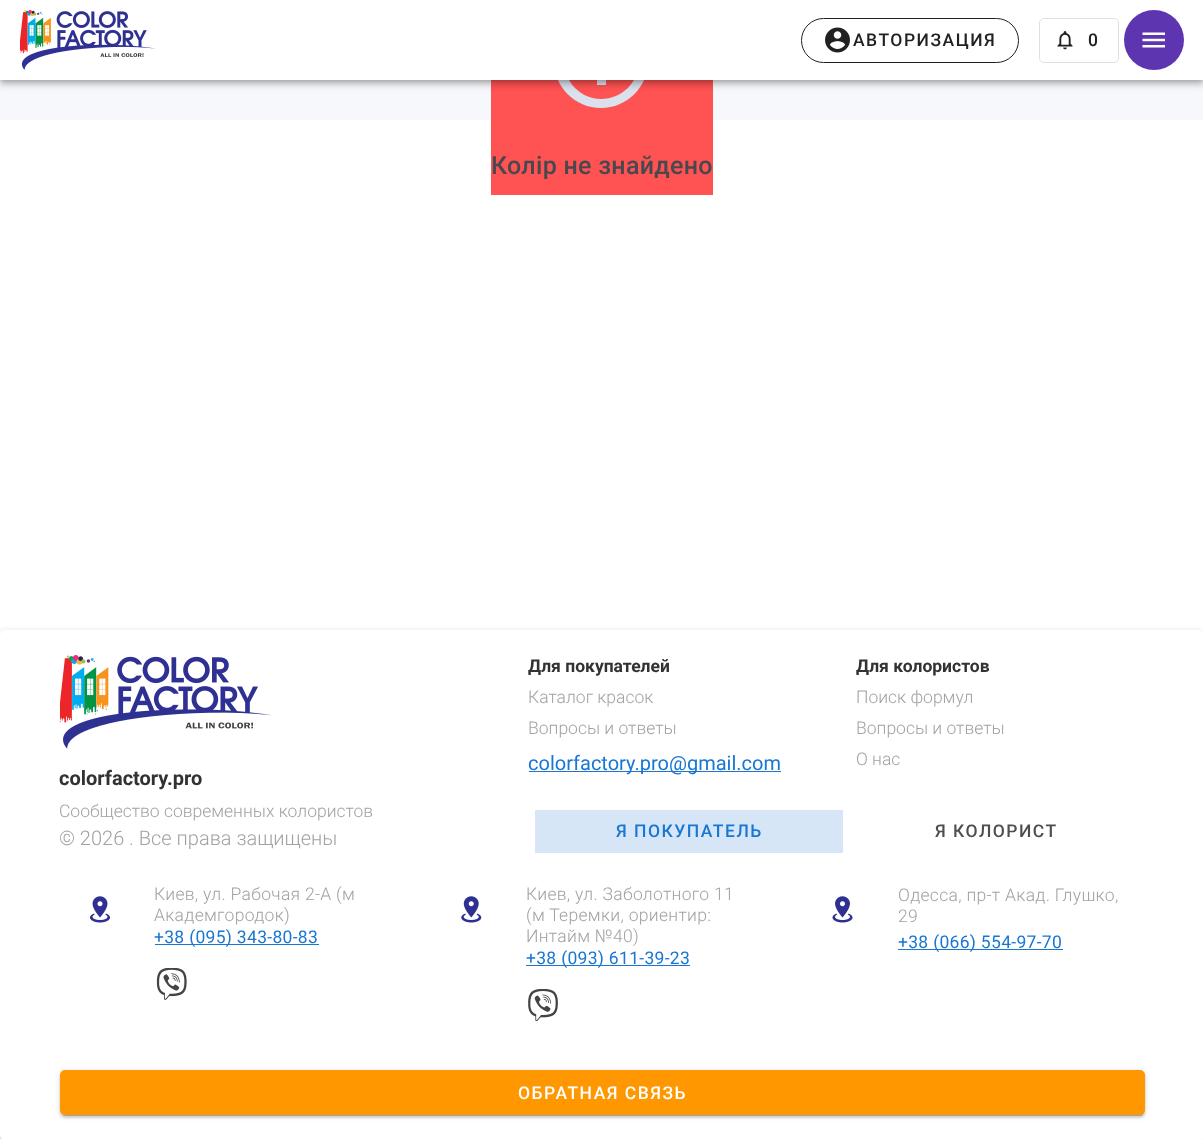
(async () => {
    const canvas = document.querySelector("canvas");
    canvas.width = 1203;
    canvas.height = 1139;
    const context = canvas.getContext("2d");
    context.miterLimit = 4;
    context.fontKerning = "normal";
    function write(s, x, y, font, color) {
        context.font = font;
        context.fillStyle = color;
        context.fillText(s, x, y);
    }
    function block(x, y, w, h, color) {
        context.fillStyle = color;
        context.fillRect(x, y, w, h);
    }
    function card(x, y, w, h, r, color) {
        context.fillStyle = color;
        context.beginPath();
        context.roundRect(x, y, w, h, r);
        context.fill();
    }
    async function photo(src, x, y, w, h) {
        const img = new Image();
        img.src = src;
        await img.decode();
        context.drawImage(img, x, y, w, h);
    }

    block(0, 0, 1203, 1139, "rgb(255, 255, 255)");
    block(0, 80, 1203, 40, "rgb(247, 248, 251)");
    block(491, 80, 222, 115, "rgb(255, 82, 82)");
    context.fillStyle = "rgb(219, 225, 236)";
    context.beginPath();
    context.moveTo(597, 75);
    context.lineTo(606, 75);
    context.lineTo(606, 85);
    context.lineTo(597, 85);
    context.closePath();
    context.moveTo(597, 38);
    context.lineTo(606, 38);
    context.lineTo(606, 66);
    context.lineTo(597, 66);
    context.closePath();
    context.moveTo(601, 14);
    context.bezierCurveTo(575, 14, 554, 35, 554, 61);
    context.bezierCurveTo(554, 87, 575, 108, 601, 108);
    context.bezierCurveTo(627, 108, 648, 87, 648, 61);
    context.bezierCurveTo(648, 35, 627, 14, 601, 14);
    context.closePath();
    context.moveTo(601, 99);
    context.bezierCurveTo(581, 99, 564, 82, 564, 61);
    context.bezierCurveTo(564, 41, 581, 24, 601, 24);
    context.bezierCurveTo(622, 24, 639, 41, 639, 61);
    context.bezierCurveTo(639, 82, 622, 99, 601, 99);
    context.closePath();
    context.fill();
    context.fillStyle = "rgba(0, 0, 0, 0.12)";
    context.filter = "blur(6px)";
    context.beginPath();
    context.rect(0, 1, 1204, 80);
    context.fill();
    context.filter = "none";
    context.fillStyle = "rgba(0, 0, 0, 0.14)";
    context.filter = "blur(3px)";
    context.beginPath();
    context.rect(0, 5, 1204, 80);
    context.fill();
    context.filter = "none";
    context.fillStyle = "rgba(0, 0, 0, 0.2)";
    context.filter = "blur(2.5px)";
    context.beginPath();
    context.rect(1, 4, 1202, 77);
    context.fill();
    context.filter = "none";
    block(0, 0, 1203, 80, "rgb(255, 255, 255)");
    await photo("media/1.png", 20, 10, 136, 60);
    context.beginPath();
    context.roundRect(801.5, 18.5, 217, 44, 22);
    context.strokeStyle = "rgb(33, 33, 33)";
    context.stroke();
    await photo("media/2.png", 825, 27, 25, 26);
    context.letterSpacing = "1.5px";
    write("АВТОРИЗАЦИЯ", 853, 46, "500 17.5px Roboto", "rgb(33, 33, 33)");
    context.beginPath();
    context.roundRect(1039.5, 18.5, 79, 44, 4.5);
    context.strokeStyle = "rgb(224, 224, 224)";
    context.stroke();
    card(1040, 19, 78, 42, 5, "rgb(255, 255, 255)");
    await photo("media/3.png", 1057, 31, 16, 19);
    write("0", 1088, 46, "500 17.5px Roboto", "rgb(33, 33, 33)");
    context.fillStyle = "rgb(94, 53, 177)";
    context.beginPath();
    context.arc(1154, 40, 30, 0, Math.PI * 2);
    context.fill();
    await photo("media/4.png", 1142, 32, 23, 16);
    context.letterSpacing = "0.3px";
    write("Колір не знайдено", 491, 174, "500 25px Roboto", "rgb(71, 73, 78)");
    context.fillStyle = "rgba(0, 0, 0, 0.12)";
    context.filter = "blur(3px)";
    context.beginPath();
    context.roundRect(0, 631, 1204, 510, 5);
    context.fill();
    context.filter = "none";
    context.fillStyle = "rgba(0, 0, 0, 0.14)";
    context.filter = "blur(1px)";
    context.beginPath();
    context.roundRect(0, 633, 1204, 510, 5);
    context.fill();
    context.filter = "none";
    card(0, 630, 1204, 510, 5, "rgb(255, 255, 255)");
    await photo("media/5.png", 60, 655, 211, 94);
    context.letterSpacing = "0px";
    write("colorfactory.pro", 59, 785, "bold 20px Roboto", "rgb(50, 50, 50)");
    write("Сообщество современных колористов", 59, 817, "300 17.5px Roboto", "rgb(162, 162, 162)");
    write("© 2026 . Все права защищены", 59, 845, "300 20px Roboto", "rgb(162, 162, 162)");
    write("Для покупателей", 528, 672, "bold 17.5px Roboto", "rgb(50, 50, 50)");
    write("Каталог красок", 528, 703, "300 17.5px Roboto", "rgb(162, 162, 162)");
    write("Вопросы и ответы", 528, 734, "300 17.5px Roboto", "rgb(162, 162, 162)");
    block(529, 771, 252, 1, "rgb(25, 118, 210)");
    write("colorfactory.pro@gmail.com", 528, 770, "20px Roboto", "rgb(25, 118, 210)");
    write("Для колористов", 856, 672, "bold 17.5px Roboto", "rgb(50, 50, 50)");
    write("Поиск формул", 856, 703, "300 17.5px Roboto", "rgb(162, 162, 162)");
    write("Вопросы и ответы", 856, 734, "300 17.5px Roboto", "rgb(162, 162, 162)");
    write("О нас", 856, 765, "300 17.5px Roboto", "rgb(162, 162, 162)");
    block(535, 810, 308, 43, "rgb(214, 230, 247)");
    context.letterSpacing = "1.5px";
    write("Я ПОКУПАТЕЛЬ", 616, 837, "500 17.5px Roboto", "rgb(25, 118, 210)");
    write("Я КОЛОРИСТ", 935, 837, "500 17.5px Roboto", "rgb(78, 78, 78)");
    await photo("media/6.png", 90, 896, 20, 27);
    context.letterSpacing = "0.3px";
    write("Киев, ул. Рабочая 2-А (м", 154, 900, "300 17.5px Roboto", "rgb(162, 162, 162)");
    write("Академгородок)", 154, 921, "300 17.5px Roboto", "rgb(162, 162, 162)");
    block(155, 944, 164, 1, "rgb(25, 118, 210)");
    write("+38 (095) 343-80-83", 154, 943, "17.5px Roboto", "rgb(25, 118, 210)");
    await photo("media/7.png", 156, 968, 31, 32);
    await photo("media/8.png", 461, 896, 21, 27);
    write("Киев, ул. Заболотного 11", 526, 900, "300 17.5px Roboto", "rgb(162, 162, 162)");
    write("(м Теремки, ориентир:", 526, 921, "300 17.5px Roboto", "rgb(162, 162, 162)");
    write("Интайм №40)", 526, 942, "300 17.5px Roboto", "rgb(162, 162, 162)");
    block(526, 965, 164, 1, "rgb(25, 118, 210)");
    write("+38 (093) 611-39-23", 526, 964, "17.5px Roboto", "rgb(25, 118, 210)");
    await photo("media/9.png", 528, 989, 30, 32);
    await photo("media/10.png", 832, 896, 21, 27);
    write("Одесса, пр-т Акад. Глушко,", 898, 901, "300 17.5px Roboto", "rgb(162, 162, 162)");
    write("29", 898, 922, "300 17.5px Roboto", "rgb(162, 162, 162)");
    block(898, 949, 165, 1, "rgb(25, 118, 210)");
    write("+38 (066) 554-97-70", 898, 948, "17.5px Roboto", "rgb(25, 118, 210)");
    context.fillStyle = "rgba(0, 0, 0, 0.12)";
    context.filter = "blur(3px)";
    context.beginPath();
    context.roundRect(60, 1071, 1085, 45, 5);
    context.fill();
    context.filter = "none";
    context.fillStyle = "rgba(0, 0, 0, 0.14)";
    context.filter = "blur(1px)";
    context.beginPath();
    context.roundRect(60, 1073, 1085, 45, 5);
    context.fill();
    context.filter = "none";
    context.fillStyle = "rgba(0, 0, 0, 0.2)";
    context.filter = "blur(0.5px)";
    context.beginPath();
    context.roundRect(63, 1076, 1080, 40, 2.5);
    context.fill();
    context.filter = "none";
    card(60, 1070, 1085, 45, 5, "rgb(255, 152, 0)");
    context.letterSpacing = "1.5px";
    write("ОБРАТНАЯ СВЯЗЬ", 518, 1099, "500 17.5px Roboto", "rgb(255, 255, 255)");
})();
